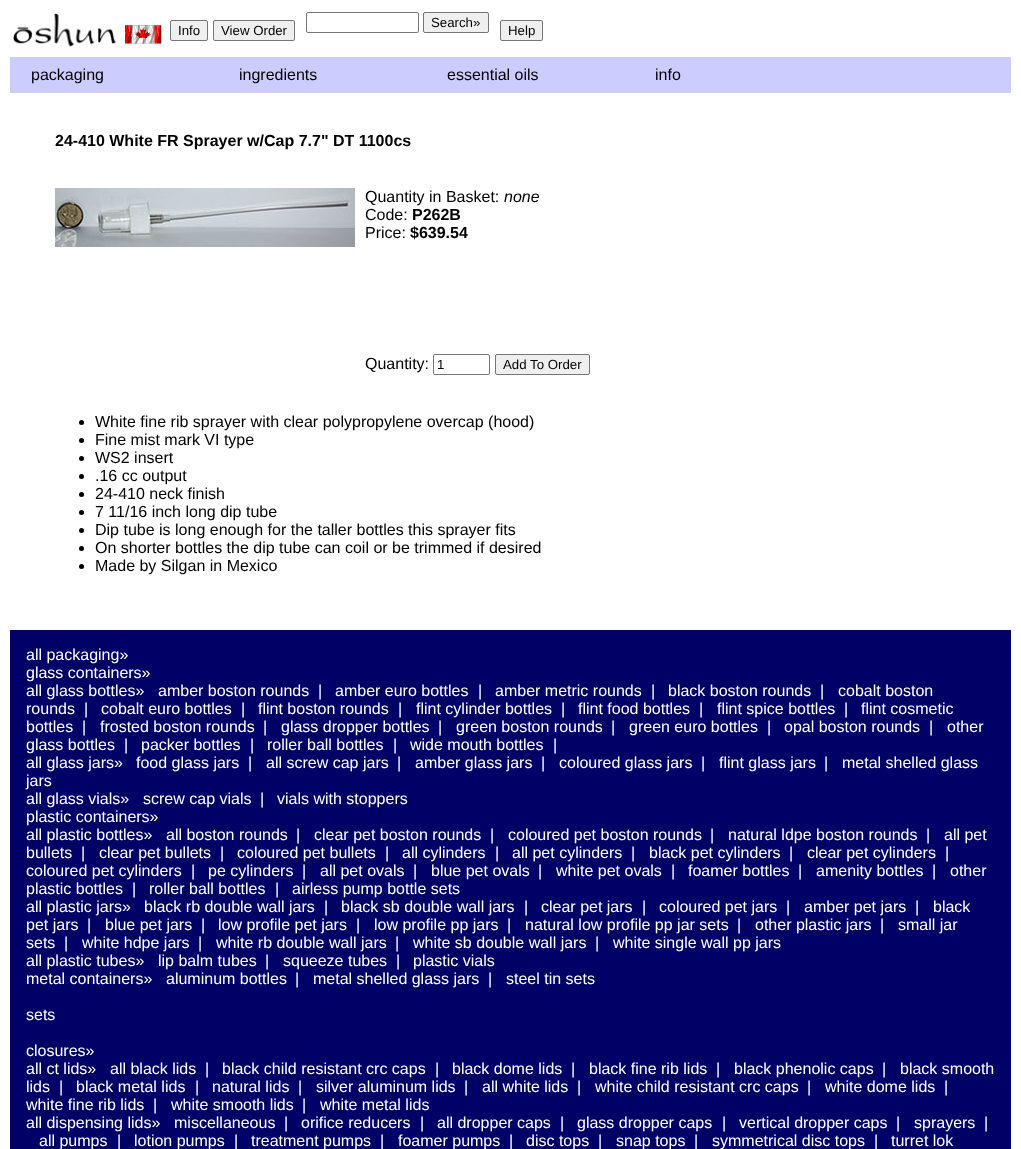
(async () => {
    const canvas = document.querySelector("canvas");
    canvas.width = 1021;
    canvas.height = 1149;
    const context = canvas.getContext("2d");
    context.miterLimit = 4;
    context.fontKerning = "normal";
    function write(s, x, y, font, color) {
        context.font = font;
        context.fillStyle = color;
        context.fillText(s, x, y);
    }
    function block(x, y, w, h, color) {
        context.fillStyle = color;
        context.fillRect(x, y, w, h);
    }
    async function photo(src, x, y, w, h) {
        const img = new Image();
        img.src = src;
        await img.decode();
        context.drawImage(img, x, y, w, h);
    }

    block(0, 0, 1021, 1149, "rgb(255, 255, 255)");
    await photo("media/1.png", 13, 13, 104, 34);
    context.beginPath();
    context.roundRect(306.5, 12.5, 112, 20, 1.5);
    context.strokeStyle = "rgb(118, 118, 118)";
    context.stroke();
    context.fillStyle = "rgb(239, 239, 239)";
    context.beginPath();
    context.roundRect(423.5, 12.5, 65, 20, 1.5);
    context.fill();
    context.stroke();
    write("Search»", 431, 27, "13.25px Liberation Sans", "rgb(0, 0, 0)");
    await photo("media/2.png", 125, 25, 37, 19);
    context.fillStyle = "rgb(239, 239, 239)";
    context.beginPath();
    context.roundRect(170.5, 20.5, 37, 20, 1.5);
    context.fill();
    context.stroke();
    write("Info", 178, 35, "13.25px Liberation Sans", "rgb(0, 0, 0)");
    context.fillStyle = "rgb(239, 239, 239)";
    context.beginPath();
    context.roundRect(213.5, 20.5, 81, 20, 1.5);
    context.fill();
    context.stroke();
    write("View Order", 221, 35, "13.25px Liberation Sans", "rgb(0, 0, 0)");
    context.fillStyle = "rgb(239, 239, 239)";
    context.beginPath();
    context.roundRect(500.5, 20.5, 42, 20, 1.5);
    context.fill();
    context.stroke();
    write("Help", 508, 35, "13.25px Liberation Sans", "rgb(0, 0, 0)");
    block(10, 57, 1001, 36, "rgb(204, 204, 255)");
    write("packaging", 31, 80, "16px Liberation Sans", "rgb(0, 0, 0)");
    write("ingredients", 239, 80, "16px Liberation Sans", "rgb(0, 0, 0)");
    write("essential oils", 447, 80, "16px Liberation Sans", "rgb(0, 0, 0)");
    write("info", 655, 80, "16px Liberation Sans", "rgb(0, 0, 0)");
    write("24-410 White FR Sprayer w/Cap 7.7\" DT 1100cs", 55, 146, "bold 16px Liberation Sans", "rgb(0, 0, 0)");
    await photo("media/3.png", 55, 188, 300, 59);
    write("Quantity in Basket:", 365, 202, "16px Liberation Sans", "rgb(0, 0, 0)");
    write("none", 504, 202, "italic 16px Liberation Sans", "rgb(0, 0, 0)");
    write("Code:", 365, 220, "16px Liberation Sans", "rgb(0, 0, 0)");
    write("P262B", 412, 220, "bold 16px Liberation Sans", "rgb(0, 0, 0)");
    write("Price:", 365, 238, "16px Liberation Sans", "rgb(0, 0, 0)");
    write("$639.54", 410, 238, "bold 16px Liberation Sans", "rgb(0, 0, 0)");
    write("Quantity:", 365, 369, "16px Liberation Sans", "rgb(0, 0, 0)");
    context.beginPath();
    context.roundRect(433.5, 354.5, 56, 20, 1.5);
    context.stroke();
    write("1", 437, 369, "13.25px Liberation Sans", "rgb(0, 0, 0)");
    context.fillStyle = "rgb(239, 239, 239)";
    context.beginPath();
    context.roundRect(495.5, 354.5, 94, 20, 1.5);
    context.fill();
    context.stroke();
    write("Add To Order", 503, 369, "13.25px Liberation Sans", "rgb(0, 0, 0)");
    context.beginPath();
    context.arc(81.5, 422.5, 2.5, 0, Math.PI * 2);
    context.fill();
    write("White fine rib sprayer with clear polypropylene overcap (hood)", 95, 427, "16px Liberation Sans", "rgb(0, 0, 0)");
    context.beginPath();
    context.arc(81.5, 440.5, 2.5, 0, Math.PI * 2);
    context.fill();
    write("Fine mist mark VI type", 95, 445, "16px Liberation Sans", "rgb(0, 0, 0)");
    context.beginPath();
    context.arc(81.5, 458.5, 2.5, 0, Math.PI * 2);
    context.fill();
    write("WS2 insert", 95, 463, "16px Liberation Sans", "rgb(0, 0, 0)");
    context.beginPath();
    context.arc(81.5, 476.5, 2.5, 0, Math.PI * 2);
    context.fill();
    write(".16 cc output", 95, 481, "16px Liberation Sans", "rgb(0, 0, 0)");
    context.beginPath();
    context.arc(81.5, 494.5, 2.5, 0, Math.PI * 2);
    context.fill();
    write("24-410 neck finish", 95, 499, "16px Liberation Sans", "rgb(0, 0, 0)");
    context.beginPath();
    context.arc(81.5, 512.5, 2.5, 0, Math.PI * 2);
    context.fill();
    write("7 11/16 inch long dip tube", 95, 517, "16px Liberation Sans", "rgb(0, 0, 0)");
    context.beginPath();
    context.arc(81.5, 530.5, 2.5, 0, Math.PI * 2);
    context.fill();
    write("Dip tube is long enough for the taller bottles this sprayer fits", 95, 535, "16px Liberation Sans", "rgb(0, 0, 0)");
    context.beginPath();
    context.arc(81.5, 548.5, 2.5, 0, Math.PI * 2);
    context.fill();
    write("On shorter bottles the dip tube can coil or be trimmed if desired", 95, 553, "16px Liberation Sans", "rgb(0, 0, 0)");
    context.beginPath();
    context.arc(81.5, 566.5, 2.5, 0, Math.PI * 2);
    context.fill();
    write("Made by Silgan in Mexico", 95, 571, "16px Liberation Sans", "rgb(0, 0, 0)");
    block(10, 630, 1001, 519, "rgb(0, 0, 102)");
    write("all packaging»", 26, 660, "16px Liberation Sans", "rgb(255, 255, 255)");
    write("glass containers»", 26, 678, "16px Liberation Sans", "rgb(255, 255, 255)");
    write("all glass bottles»", 26, 696, "16px Liberation Sans", "rgb(255, 255, 255)");
    write("amber boston rounds", 158, 696, "16px Liberation Sans", "rgb(255, 255, 255)");
    write("|", 318, 696, "16px Liberation Sans", "rgb(255, 255, 255)");
    write("amber euro bottles", 335, 696, "16px Liberation Sans", "rgb(255, 255, 255)");
    write("|", 478, 696, "16px Liberation Sans", "rgb(255, 255, 255)");
    write("amber metric rounds", 495, 696, "16px Liberation Sans", "rgb(255, 255, 255)");
    write("|", 651, 696, "16px Liberation Sans", "rgb(255, 255, 255)");
    write("black boston rounds", 668, 696, "16px Liberation Sans", "rgb(255, 255, 255)");
    write("|", 820, 696, "16px Liberation Sans", "rgb(255, 255, 255)");
    write("cobalt boston", 838, 696, "16px Liberation Sans", "rgb(255, 255, 255)");
    write("rounds", 26, 714, "16px Liberation Sans", "rgb(255, 255, 255)");
    write("|", 84, 714, "16px Liberation Sans", "rgb(255, 255, 255)");
    write("cobalt euro bottles", 101, 714, "16px Liberation Sans", "rgb(255, 255, 255)");
    write("|", 241, 714, "16px Liberation Sans", "rgb(255, 255, 255)");
    write("flint boston rounds", 258, 714, "16px Liberation Sans", "rgb(255, 255, 255)");
    write("|", 398, 714, "16px Liberation Sans", "rgb(255, 255, 255)");
    write("flint cylinder bottles", 416, 714, "16px Liberation Sans", "rgb(255, 255, 255)");
    write("|", 561, 714, "16px Liberation Sans", "rgb(255, 255, 255)");
    write("flint food bottles", 578, 714, "16px Liberation Sans", "rgb(255, 255, 255)");
    write("|", 699, 714, "16px Liberation Sans", "rgb(255, 255, 255)");
    write("flint spice bottles", 717, 714, "16px Liberation Sans", "rgb(255, 255, 255)");
    write("|", 844, 714, "16px Liberation Sans", "rgb(255, 255, 255)");
    write("flint cosmetic", 861, 714, "16px Liberation Sans", "rgb(255, 255, 255)");
    write("bottles", 26, 732, "16px Liberation Sans", "rgb(255, 255, 255)");
    write("|", 82, 732, "16px Liberation Sans", "rgb(255, 255, 255)");
    write("frosted boston rounds", 100, 732, "16px Liberation Sans", "rgb(255, 255, 255)");
    write("|", 263, 732, "16px Liberation Sans", "rgb(255, 255, 255)");
    write("glass dropper bottles", 281, 732, "16px Liberation Sans", "rgb(255, 255, 255)");
    write("|", 438, 732, "16px Liberation Sans", "rgb(255, 255, 255)");
    write("green boston rounds", 456, 732, "16px Liberation Sans", "rgb(255, 255, 255)");
    write("|", 611, 732, "16px Liberation Sans", "rgb(255, 255, 255)");
    write("green euro bottles", 629, 732, "16px Liberation Sans", "rgb(255, 255, 255)");
    write("|", 767, 732, "16px Liberation Sans", "rgb(255, 255, 255)");
    write("opal boston rounds", 784, 732, "16px Liberation Sans", "rgb(255, 255, 255)");
    write("|", 929, 732, "16px Liberation Sans", "rgb(255, 255, 255)");
    write("other", 947, 732, "16px Liberation Sans", "rgb(255, 255, 255)");
    write("glass bottles", 26, 750, "16px Liberation Sans", "rgb(255, 255, 255)");
    write("|", 124, 750, "16px Liberation Sans", "rgb(255, 255, 255)");
    write("packer bottles", 141, 750, "16px Liberation Sans", "rgb(255, 255, 255)");
    write("|", 250, 750, "16px Liberation Sans", "rgb(255, 255, 255)");
    write("roller ball bottles", 267, 750, "16px Liberation Sans", "rgb(255, 255, 255)");
    write("|", 393, 750, "16px Liberation Sans", "rgb(255, 255, 255)");
    write("wide mouth bottles", 410, 750, "16px Liberation Sans", "rgb(255, 255, 255)");
    write("|", 553, 750, "16px Liberation Sans", "rgb(255, 255, 255)");
    write("all glass jars»", 26, 768, "16px Liberation Sans", "rgb(255, 255, 255)");
    write("food glass jars", 136, 768, "16px Liberation Sans", "rgb(255, 255, 255)");
    write("|", 248, 768, "16px Liberation Sans", "rgb(255, 255, 255)");
    write("all screw cap jars", 266, 768, "16px Liberation Sans", "rgb(255, 255, 255)");
    write("|", 397, 768, "16px Liberation Sans", "rgb(255, 255, 255)");
    write("amber glass jars", 415, 768, "16px Liberation Sans", "rgb(255, 255, 255)");
    write("|", 541, 768, "16px Liberation Sans", "rgb(255, 255, 255)");
    write("coloured glass jars", 559, 768, "16px Liberation Sans", "rgb(255, 255, 255)");
    write("|", 701, 768, "16px Liberation Sans", "rgb(255, 255, 255)");
    write("flint glass jars", 719, 768, "16px Liberation Sans", "rgb(255, 255, 255)");
    write("|", 824, 768, "16px Liberation Sans", "rgb(255, 255, 255)");
    write("metal shelled glass", 842, 768, "16px Liberation Sans", "rgb(255, 255, 255)");
    write("jars", 26, 786, "16px Liberation Sans", "rgb(255, 255, 255)");
    write("all glass vials»", 26, 804, "16px Liberation Sans", "rgb(255, 255, 255)");
    write("screw cap vials", 143, 804, "16px Liberation Sans", "rgb(255, 255, 255)");
    write("|", 260, 804, "16px Liberation Sans", "rgb(255, 255, 255)");
    write("vials with stoppers", 277, 804, "16px Liberation Sans", "rgb(255, 255, 255)");
    write("plastic containers»", 26, 822, "16px Liberation Sans", "rgb(255, 255, 255)");
    write("all plastic bottles»", 26, 840, "16px Liberation Sans", "rgb(255, 255, 255)");
    write("all boston rounds", 166, 840, "16px Liberation Sans", "rgb(255, 255, 255)");
    write("|", 296, 840, "16px Liberation Sans", "rgb(255, 255, 255)");
    write("clear pet boston rounds", 314, 840, "16px Liberation Sans", "rgb(255, 255, 255)");
    write("|", 490, 840, "16px Liberation Sans", "rgb(255, 255, 255)");
    write("coloured pet boston rounds", 508, 840, "16px Liberation Sans", "rgb(255, 255, 255)");
    write("|", 710, 840, "16px Liberation Sans", "rgb(255, 255, 255)");
    write("natural ldpe boston rounds", 728, 840, "16px Liberation Sans", "rgb(255, 255, 255)");
    write("|", 926, 840, "16px Liberation Sans", "rgb(255, 255, 255)");
    write("all pet", 944, 840, "16px Liberation Sans", "rgb(255, 255, 255)");
    write("bullets", 26, 858, "16px Liberation Sans", "rgb(255, 255, 255)");
    write("|", 81, 858, "16px Liberation Sans", "rgb(255, 255, 255)");
    write("clear pet bullets", 99, 858, "16px Liberation Sans", "rgb(255, 255, 255)");
    write("|", 220, 858, "16px Liberation Sans", "rgb(255, 255, 255)");
    write("coloured pet bullets", 237, 858, "16px Liberation Sans", "rgb(255, 255, 255)");
    write("|", 385, 858, "16px Liberation Sans", "rgb(255, 255, 255)");
    write("all cylinders", 402, 858, "16px Liberation Sans", "rgb(255, 255, 255)");
    write("|", 495, 858, "16px Liberation Sans", "rgb(255, 255, 255)");
    write("all pet cylinders", 512, 858, "16px Liberation Sans", "rgb(255, 255, 255)");
    write("|", 631, 858, "16px Liberation Sans", "rgb(255, 255, 255)");
    write("black pet cylinders", 649, 858, "16px Liberation Sans", "rgb(255, 255, 255)");
    write("|", 789, 858, "16px Liberation Sans", "rgb(255, 255, 255)");
    write("clear pet cylinders", 807, 858, "16px Liberation Sans", "rgb(255, 255, 255)");
    write("|", 945, 858, "16px Liberation Sans", "rgb(255, 255, 255)");
    write("coloured pet cylinders", 26, 876, "16px Liberation Sans", "rgb(255, 255, 255)");
    write("|", 191, 876, "16px Liberation Sans", "rgb(255, 255, 255)");
    write("pe cylinders", 208, 876, "16px Liberation Sans", "rgb(255, 255, 255)");
    write("|", 302, 876, "16px Liberation Sans", "rgb(255, 255, 255)");
    write("all pet ovals", 320, 876, "16px Liberation Sans", "rgb(255, 255, 255)");
    write("|", 413, 876, "16px Liberation Sans", "rgb(255, 255, 255)");
    write("blue pet ovals", 431, 876, "16px Liberation Sans", "rgb(255, 255, 255)");
    write("|", 538, 876, "16px Liberation Sans", "rgb(255, 255, 255)");
    write("white pet ovals", 556, 876, "16px Liberation Sans", "rgb(255, 255, 255)");
    write("|", 671, 876, "16px Liberation Sans", "rgb(255, 255, 255)");
    write("foamer bottles", 688, 876, "16px Liberation Sans", "rgb(255, 255, 255)");
    write("|", 798, 876, "16px Liberation Sans", "rgb(255, 255, 255)");
    write("amenity bottles", 816, 876, "16px Liberation Sans", "rgb(255, 255, 255)");
    write("|", 932, 876, "16px Liberation Sans", "rgb(255, 255, 255)");
    write("other", 950, 876, "16px Liberation Sans", "rgb(255, 255, 255)");
    write("plastic bottles", 26, 894, "16px Liberation Sans", "rgb(255, 255, 255)");
    write("|", 132, 894, "16px Liberation Sans", "rgb(255, 255, 255)");
    write("roller ball bottles", 149, 894, "16px Liberation Sans", "rgb(255, 255, 255)");
    write("|", 275, 894, "16px Liberation Sans", "rgb(255, 255, 255)");
    write("airless pump bottle sets", 292, 894, "16px Liberation Sans", "rgb(255, 255, 255)");
    write("all plastic jars»", 26, 912, "16px Liberation Sans", "rgb(255, 255, 255)");
    write("black rb double wall jars", 144, 912, "16px Liberation Sans", "rgb(255, 255, 255)");
    write("|", 324, 912, "16px Liberation Sans", "rgb(255, 255, 255)");
    write("black sb double wall jars", 341, 912, "16px Liberation Sans", "rgb(255, 255, 255)");
    write("|", 524, 912, "16px Liberation Sans", "rgb(255, 255, 255)");
    write("clear pet jars", 541, 912, "16px Liberation Sans", "rgb(255, 255, 255)");
    write("|", 642, 912, "16px Liberation Sans", "rgb(255, 255, 255)");
    write("coloured pet jars", 659, 912, "16px Liberation Sans", "rgb(255, 255, 255)");
    write("|", 786, 912, "16px Liberation Sans", "rgb(255, 255, 255)");
    write("amber pet jars", 804, 912, "16px Liberation Sans", "rgb(255, 255, 255)");
    write("|", 915, 912, "16px Liberation Sans", "rgb(255, 255, 255)");
    write("black", 933, 912, "16px Liberation Sans", "rgb(255, 255, 255)");
    write("pet jars", 26, 930, "16px Liberation Sans", "rgb(255, 255, 255)");
    write("|", 87, 930, "16px Liberation Sans", "rgb(255, 255, 255)");
    write("blue pet jars", 105, 930, "16px Liberation Sans", "rgb(255, 255, 255)");
    write("|", 201, 930, "16px Liberation Sans", "rgb(255, 255, 255)");
    write("low profile pet jars", 218, 930, "16px Liberation Sans", "rgb(255, 255, 255)");
    write("|", 356, 930, "16px Liberation Sans", "rgb(255, 255, 255)");
    write("low profile pp jars", 374, 930, "16px Liberation Sans", "rgb(255, 255, 255)");
    write("|", 507, 930, "16px Liberation Sans", "rgb(255, 255, 255)");
    write("natural low profile pp jar sets", 525, 930, "16px Liberation Sans", "rgb(255, 255, 255)");
    write("|", 737, 930, "16px Liberation Sans", "rgb(255, 255, 255)");
    write("other plastic jars", 755, 930, "16px Liberation Sans", "rgb(255, 255, 255)");
    write("|", 880, 930, "16px Liberation Sans", "rgb(255, 255, 255)");
    write("small jar", 898, 930, "16px Liberation Sans", "rgb(255, 255, 255)");
    write("sets", 26, 948, "16px Liberation Sans", "rgb(255, 255, 255)");
    write("|", 64, 948, "16px Liberation Sans", "rgb(255, 255, 255)");
    write("white hdpe jars", 82, 948, "16px Liberation Sans", "rgb(255, 255, 255)");
    write("|", 198, 948, "16px Liberation Sans", "rgb(255, 255, 255)");
    write("white rb double wall jars", 216, 948, "16px Liberation Sans", "rgb(255, 255, 255)");
    write("|", 395, 948, "16px Liberation Sans", "rgb(255, 255, 255)");
    write("white sb double wall jars", 413, 948, "16px Liberation Sans", "rgb(255, 255, 255)");
    write("|", 595, 948, "16px Liberation Sans", "rgb(255, 255, 255)");
    write("white single wall pp jars", 613, 948, "16px Liberation Sans", "rgb(255, 255, 255)");
    write("all plastic tubes»", 26, 966, "16px Liberation Sans", "rgb(255, 255, 255)");
    write("lip balm tubes", 158, 966, "16px Liberation Sans", "rgb(255, 255, 255)");
    write("|", 265, 966, "16px Liberation Sans", "rgb(255, 255, 255)");
    write("squeeze tubes", 283, 966, "16px Liberation Sans", "rgb(255, 255, 255)");
    write("|", 396, 966, "16px Liberation Sans", "rgb(255, 255, 255)");
    write("plastic vials", 413, 966, "16px Liberation Sans", "rgb(255, 255, 255)");
    write("metal containers»", 26, 984, "16px Liberation Sans", "rgb(255, 255, 255)");
    write("aluminum bottles", 166, 984, "16px Liberation Sans", "rgb(255, 255, 255)");
    write("|", 295, 984, "16px Liberation Sans", "rgb(255, 255, 255)");
    write("metal shelled glass jars", 313, 984, "16px Liberation Sans", "rgb(255, 255, 255)");
    write("|", 488, 984, "16px Liberation Sans", "rgb(255, 255, 255)");
    write("steel tin sets", 506, 984, "16px Liberation Sans", "rgb(255, 255, 255)");
    write("sets", 26, 1020, "16px Liberation Sans", "rgb(255, 255, 255)");
    write("closures»", 26, 1056, "16px Liberation Sans", "rgb(255, 255, 255)");
    write("all ct lids»", 26, 1074, "16px Liberation Sans", "rgb(255, 255, 255)");
    write("all black lids", 110, 1074, "16px Liberation Sans", "rgb(255, 255, 255)");
    write("|", 205, 1074, "16px Liberation Sans", "rgb(255, 255, 255)");
    write("black child resistant crc caps", 222, 1074, "16px Liberation Sans", "rgb(255, 255, 255)");
    write("|", 435, 1074, "16px Liberation Sans", "rgb(255, 255, 255)");
    write("black dome lids", 452, 1074, "16px Liberation Sans", "rgb(255, 255, 255)");
    write("|", 571, 1074, "16px Liberation Sans", "rgb(255, 255, 255)");
    write("black fine rib lids", 589, 1074, "16px Liberation Sans", "rgb(255, 255, 255)");
    write("|", 716, 1074, "16px Liberation Sans", "rgb(255, 255, 255)");
    write("black phenolic caps", 734, 1074, "16px Liberation Sans", "rgb(255, 255, 255)");
    write("|", 882, 1074, "16px Liberation Sans", "rgb(255, 255, 255)");
    write("black smooth", 900, 1074, "16px Liberation Sans", "rgb(255, 255, 255)");
    write("lids", 26, 1092, "16px Liberation Sans", "rgb(255, 255, 255)");
    write("|", 59, 1092, "16px Liberation Sans", "rgb(255, 255, 255)");
    write("black metal lids", 76, 1092, "16px Liberation Sans", "rgb(255, 255, 255)");
    write("|", 195, 1092, "16px Liberation Sans", "rgb(255, 255, 255)");
    write("natural lids", 212, 1092, "16px Liberation Sans", "rgb(255, 255, 255)");
    write("|", 298, 1092, "16px Liberation Sans", "rgb(255, 255, 255)");
    write("silver aluminum lids", 316, 1092, "16px Liberation Sans", "rgb(255, 255, 255)");
    write("|", 464, 1092, "16px Liberation Sans", "rgb(255, 255, 255)");
    write("all white lids", 482, 1092, "16px Liberation Sans", "rgb(255, 255, 255)");
    write("|", 577, 1092, "16px Liberation Sans", "rgb(255, 255, 255)");
    write("white child resistant crc caps", 595, 1092, "16px Liberation Sans", "rgb(255, 255, 255)");
    write("|", 807, 1092, "16px Liberation Sans", "rgb(255, 255, 255)");
    write("white dome lids", 825, 1092, "16px Liberation Sans", "rgb(255, 255, 255)");
    write("|", 944, 1092, "16px Liberation Sans", "rgb(255, 255, 255)");
    write("white fine rib lids", 26, 1110, "16px Liberation Sans", "rgb(255, 255, 255)");
    write("|", 153, 1110, "16px Liberation Sans", "rgb(255, 255, 255)");
    write("white smooth lids", 171, 1110, "16px Liberation Sans", "rgb(255, 255, 255)");
    write("|", 302, 1110, "16px Liberation Sans", "rgb(255, 255, 255)");
    write("white metal lids", 320, 1110, "16px Liberation Sans", "rgb(255, 255, 255)");
    write("all dispensing lids»", 26, 1128, "16px Liberation Sans", "rgb(255, 255, 255)");
    write("miscellaneous", 174, 1128, "16px Liberation Sans", "rgb(255, 255, 255)");
    write("|", 284, 1128, "16px Liberation Sans", "rgb(255, 255, 255)");
    write("orifice reducers", 301, 1128, "16px Liberation Sans", "rgb(255, 255, 255)");
    write("|", 420, 1128, "16px Liberation Sans", "rgb(255, 255, 255)");
    write("all dropper caps", 437, 1128, "16px Liberation Sans", "rgb(255, 255, 255)");
    write("|", 560, 1128, "16px Liberation Sans", "rgb(255, 255, 255)");
    write("glass dropper caps", 577, 1128, "16px Liberation Sans", "rgb(255, 255, 255)");
    write("|", 722, 1128, "16px Liberation Sans", "rgb(255, 255, 255)");
    write("vertical dropper caps", 739, 1128, "16px Liberation Sans", "rgb(255, 255, 255)");
    write("|", 896, 1128, "16px Liberation Sans", "rgb(255, 255, 255)");
    write("sprayers", 914, 1128, "16px Liberation Sans", "rgb(255, 255, 255)");
    write("|", 984, 1128, "16px Liberation Sans", "rgb(255, 255, 255)");
    write("all pumps", 39, 1146, "16px Liberation Sans", "rgb(255, 255, 255)");
    write("|", 117, 1146, "16px Liberation Sans", "rgb(255, 255, 255)");
    write("lotion pumps", 134, 1146, "16px Liberation Sans", "rgb(255, 255, 255)");
    write("|", 234, 1146, "16px Liberation Sans", "rgb(255, 255, 255)");
    write("treatment pumps", 251, 1146, "16px Liberation Sans", "rgb(255, 255, 255)");
    write("|", 380, 1146, "16px Liberation Sans", "rgb(255, 255, 255)");
    write("foamer pumps", 398, 1146, "16px Liberation Sans", "rgb(255, 255, 255)");
    write("|", 509, 1146, "16px Liberation Sans", "rgb(255, 255, 255)");
    write("disc tops", 526, 1146, "16px Liberation Sans", "rgb(255, 255, 255)");
    write("|", 598, 1146, "16px Liberation Sans", "rgb(255, 255, 255)");
    write("snap tops", 616, 1146, "16px Liberation Sans", "rgb(255, 255, 255)");
    write("|", 694, 1146, "16px Liberation Sans", "rgb(255, 255, 255)");
    write("symmetrical disc tops", 712, 1146, "16px Liberation Sans", "rgb(255, 255, 255)");
    write("|", 874, 1146, "16px Liberation Sans", "rgb(255, 255, 255)");
    write("turret lok", 891, 1146, "16px Liberation Sans", "rgb(255, 255, 255)");
})();
